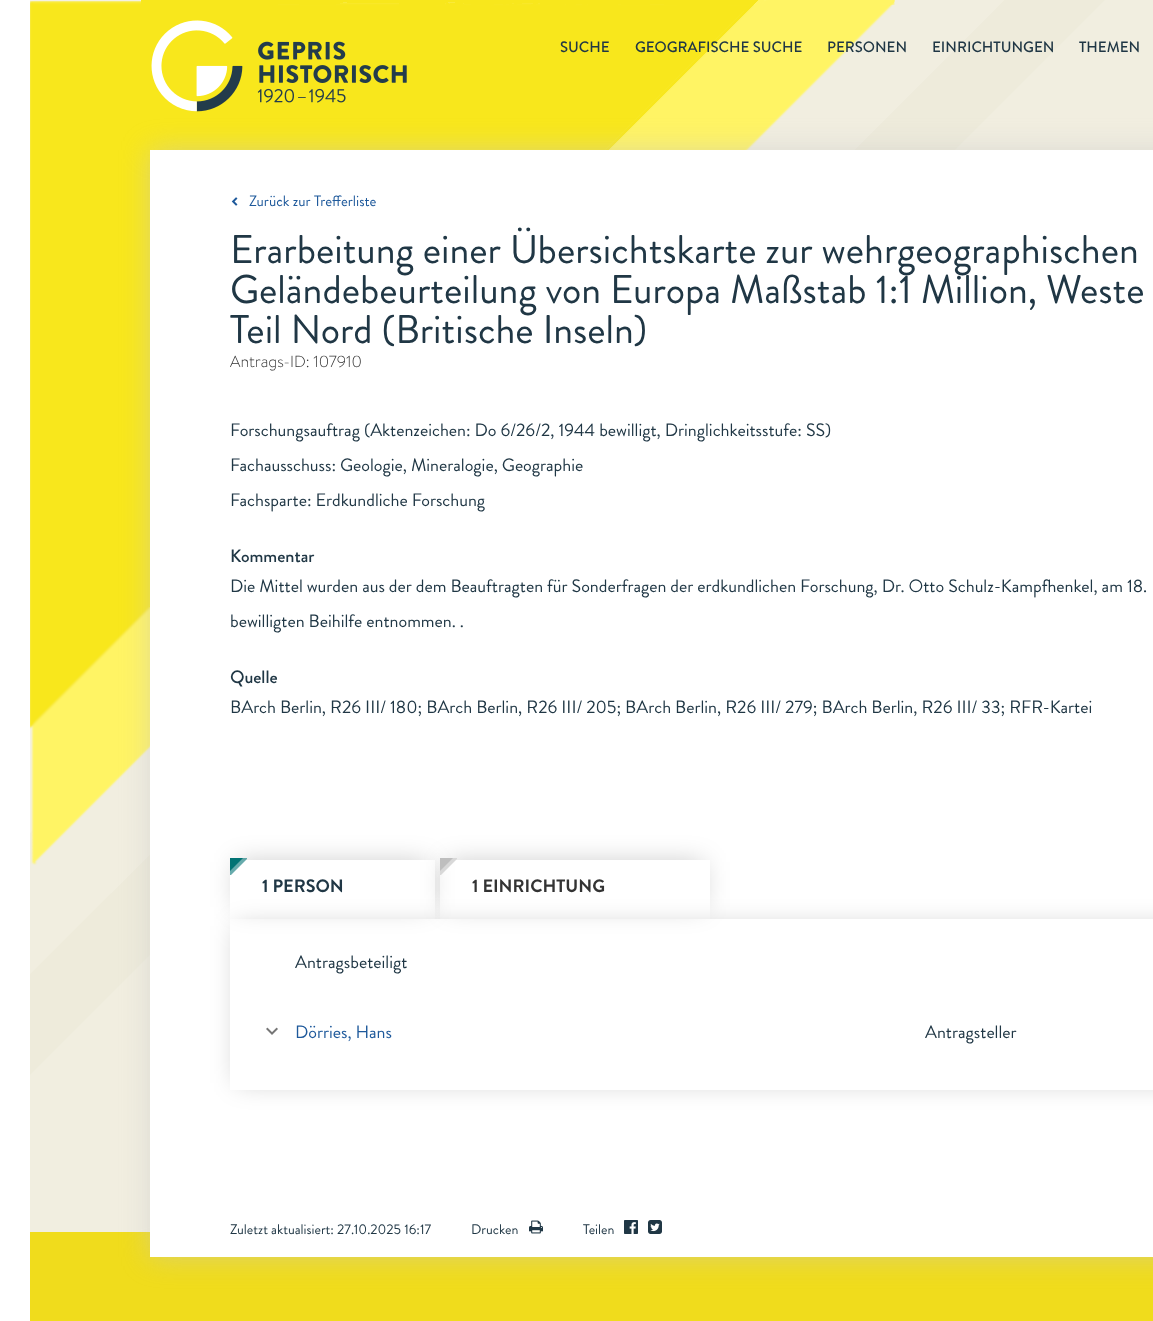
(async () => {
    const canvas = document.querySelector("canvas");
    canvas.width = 1153;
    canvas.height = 1321;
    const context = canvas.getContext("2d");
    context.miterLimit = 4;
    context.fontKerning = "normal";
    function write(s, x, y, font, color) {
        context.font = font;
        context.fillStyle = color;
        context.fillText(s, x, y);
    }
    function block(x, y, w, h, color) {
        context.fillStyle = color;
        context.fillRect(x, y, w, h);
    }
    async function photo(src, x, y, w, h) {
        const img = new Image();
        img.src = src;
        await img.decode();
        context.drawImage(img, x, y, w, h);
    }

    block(0, 0, 1153, 1321, "rgb(255, 255, 255)");
    block(30, 0, 1123, 1232, "rgb(244, 241, 230)");
    await photo("media/1.png", 30, 0, 1123, 1232);
    await photo("media/2.png", 151, 20, 256, 92);
    write("SUCHE", 560, 52, "500 15px Brandon Grotesque", "rgb(32, 55, 69)");
    write("GEOGRAFISCHE SUCHE", 635, 52, "500 15px Brandon Grotesque", "rgb(32, 55, 69)");
    write("PERSONEN", 827, 52, "500 15px Brandon Grotesque", "rgb(32, 55, 69)");
    write("EINRICHTUNGEN", 932, 52, "500 15px Brandon Grotesque", "rgb(32, 55, 69)");
    write("THEMEN", 1079, 52, "500 15px Brandon Grotesque", "rgb(32, 55, 69)");
    block(30, 1232, 1123, 89, "rgb(240, 220, 28)");
    context.fillStyle = "rgba(197, 197, 197, 0.5)";
    context.filter = "blur(14px)";
    context.beginPath();
    context.rect(150, 150, 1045, 1107);
    context.fill();
    context.filter = "none";
    block(150, 150, 1003, 1107, "rgb(255, 255, 255)");
    await photo("media/3.png", 231, 197, 7, 9);
    write("Zurück zur Trefferliste", 249, 206, "15px Brandon Grotesque", "rgb(30, 89, 155)");
    write("Erarbeitung einer Übersichtskarte zur wehrgeographischen", 230, 263, "40px Brandon Grotesque", "rgb(32, 55, 69)");
    write("Geländebeurteilung von Europa Maßstab 1:1 Million, Weste", 230, 303, "40px Brandon Grotesque", "rgb(32, 55, 69)");
    write("Teil Nord (Britische Inseln)", 230, 343, "40px Brandon Grotesque", "rgb(32, 55, 69)");
    write("Antrags-ID: 107910", 230, 367, "300 16px 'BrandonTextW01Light'", "rgb(51, 51, 51)");
    write("Forschungsauftrag (Aktenzeichen: Do 6/26/2, 1944 bewilligt, Dringlichkeitsstufe: SS)", 230, 436, "18px Brandon Grotesque", "rgb(32, 55, 69)");
    write("Fachausschuss: Geologie, Mineralogie, Geographie", 230, 471, "18px Brandon Grotesque", "rgb(32, 55, 69)");
    write("Fachsparte: Erdkundliche Forschung", 230, 506, "18px Brandon Grotesque", "rgb(32, 55, 69)");
    write("Kommentar", 230, 562, "500 18px Brandon Grotesque", "rgb(32, 55, 69)");
    write("Die Mittel wurden aus der dem Beauftragten für Sonderfragen der erdkundlichen Forschung, Dr. Otto Schulz-Kampfhenkel, am 18.", 230, 592, "18px Brandon Grotesque", "rgb(32, 55, 69)");
    write("bewilligten Beihilfe entnommen. .", 230, 627, "18px Brandon Grotesque", "rgb(32, 55, 69)");
    write("Quelle", 230, 683, "500 18px Brandon Grotesque", "rgb(32, 55, 69)");
    write("BArch Berlin, R26 III/ 180; BArch Berlin, R26 III/ 205; BArch Berlin, R26 III/ 279; BArch Berlin, R26 III/ 33; RFR-Kartei", 230, 713, "18px Brandon Grotesque", "rgb(32, 55, 69)");
    context.save();
    context.beginPath();
    context.moveTo(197, 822);
    context.lineTo(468, 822);
    context.lineTo(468, 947);
    context.lineTo(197, 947);
    context.closePath();
    context.moveTo(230, 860);
    context.lineTo(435, 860);
    context.lineTo(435, 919);
    context.lineTo(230, 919);
    context.closePath();
    context.clip("evenodd");
    context.fillStyle = "rgba(0, 0, 0, 0.21)";
    context.filter = "blur(13px)";
    context.beginPath();
    context.rect(237, 862, 191, 45);
    context.fill();
    context.filter = "none";
    context.restore();
    await photo("media/4.png", 230, 858, 17, 17);
    context.save();
    context.beginPath();
    context.moveTo(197, 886);
    context.lineTo(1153, 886);
    context.lineTo(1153, 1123);
    context.lineTo(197, 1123);
    context.closePath();
    context.moveTo(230, 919);
    context.lineTo(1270, 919);
    context.lineTo(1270, 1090);
    context.lineTo(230, 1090);
    context.closePath();
    context.clip("evenodd");
    context.fillStyle = "rgba(0, 0, 0, 0.21)";
    context.filter = "blur(13px)";
    context.beginPath();
    context.rect(237, 926, 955, 157);
    context.fill();
    context.filter = "none";
    context.restore();
    write("1 PERSON", 262, 892, "bold 18px Brandon Grotesque", "rgb(32, 55, 69)");
    context.save();
    context.beginPath();
    context.moveTo(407, 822);
    context.lineTo(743, 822);
    context.lineTo(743, 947);
    context.lineTo(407, 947);
    context.closePath();
    context.moveTo(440, 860);
    context.lineTo(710, 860);
    context.lineTo(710, 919);
    context.lineTo(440, 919);
    context.closePath();
    context.clip("evenodd");
    context.fillStyle = "rgba(0, 0, 0, 0.21)";
    context.filter = "blur(13px)";
    context.beginPath();
    context.rect(447, 862, 256, 45);
    context.fill();
    context.filter = "none";
    context.restore();
    await photo("media/5.png", 440, 858, 17, 17);
    write("1 EINRICHTUNG", 472, 892, "bold 18px Brandon Grotesque", "rgb(51, 51, 51)");
    write("Antragsbeteiligt", 295, 968, "18px Brandon Grotesque", "rgb(32, 55, 69)");
    await photo("media/6.png", 266, 1027, 12, 8);
    write("Dörries, Hans", 295, 1038, "18px Brandon Grotesque", "rgb(30, 89, 155)");
    write("Antragsteller", 925, 1038, "18px Brandon Grotesque", "rgb(32, 55, 69)");
    write("Zuletzt aktualisiert: 27.10.2025 16:17", 230, 1234, "14px Brandon Grotesque", "rgb(32, 55, 69)");
    write("Drucken", 471, 1234, "14px Brandon Grotesque", "rgb(32, 55, 69)");
    await photo("media/7.png", 529, 1220, 14, 14);
    write("Teilen", 583, 1234, "14px Brandon Grotesque", "rgb(32, 55, 69)");
    await photo("media/8.png", 624, 1220, 14, 14);
    await photo("media/9.png", 648, 1220, 14, 14);
})();
